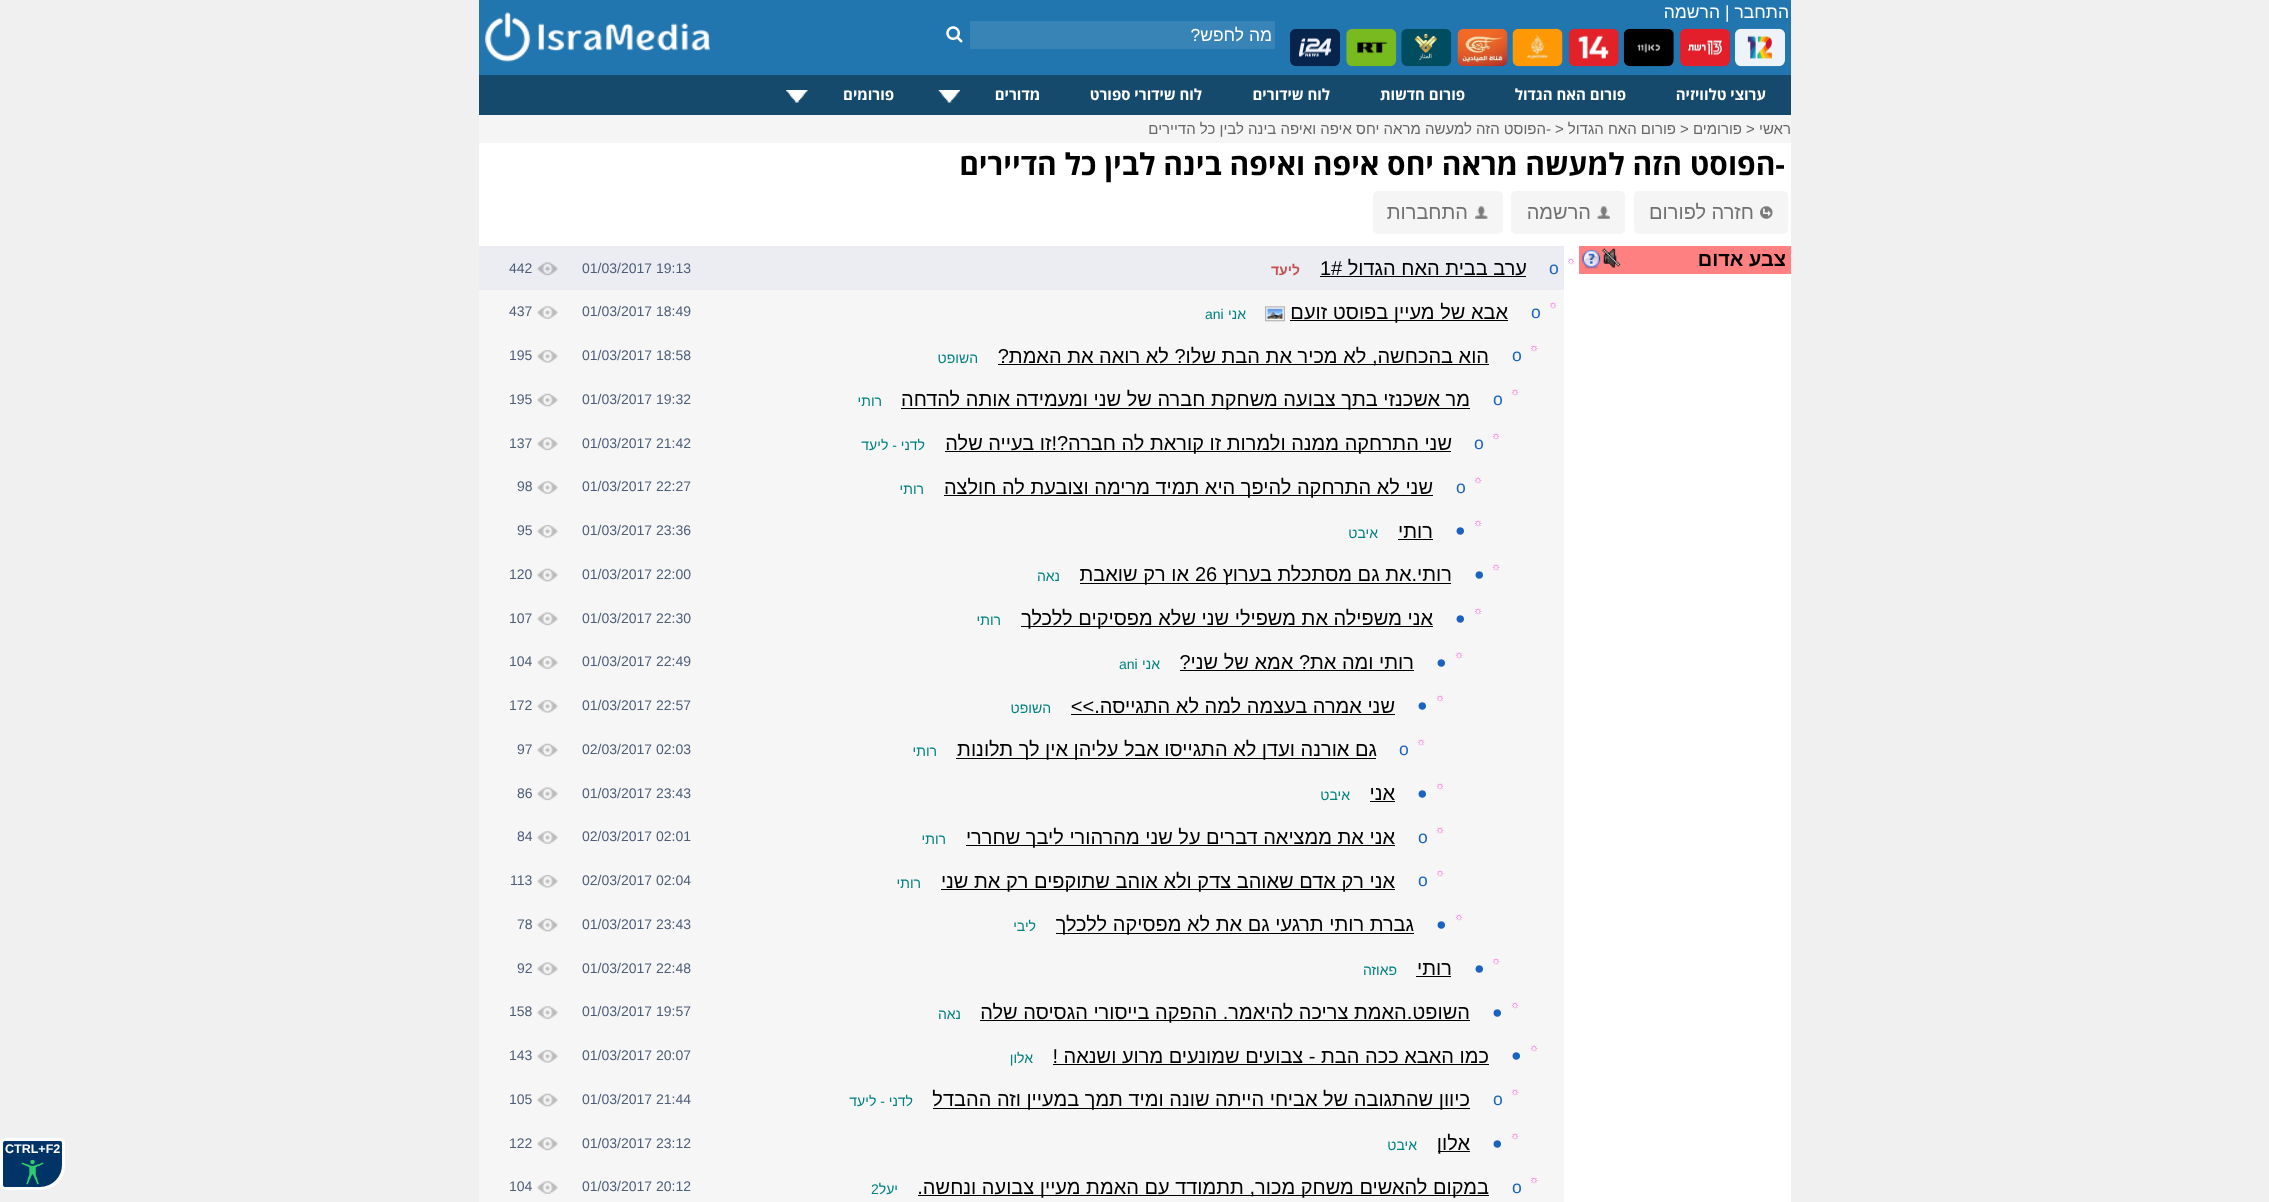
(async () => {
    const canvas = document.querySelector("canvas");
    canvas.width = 2269;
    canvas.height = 1202;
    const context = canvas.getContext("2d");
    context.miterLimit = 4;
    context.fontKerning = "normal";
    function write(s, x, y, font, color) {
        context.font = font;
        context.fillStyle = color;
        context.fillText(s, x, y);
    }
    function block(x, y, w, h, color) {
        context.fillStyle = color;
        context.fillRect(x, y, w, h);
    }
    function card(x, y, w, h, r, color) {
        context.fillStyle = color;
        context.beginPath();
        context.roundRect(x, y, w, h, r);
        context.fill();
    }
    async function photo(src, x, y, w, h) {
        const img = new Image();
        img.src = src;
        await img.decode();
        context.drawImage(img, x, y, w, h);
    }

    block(0, 0, 2269, 1202, "rgb(240, 240, 240)");
    block(479, 143, 1312, 1059, "rgb(255, 255, 255)");
    block(479, 0, 1312, 75, "rgb(34, 118, 175)");
    context.direction = "rtl";
    write("התחבר", 1789, 18, "17.5px Liberation Sans", "rgb(255, 255, 255)");
    context.direction = "ltr";
    write("|", 1725, 18, "17.5px Liberation Sans", "rgb(255, 255, 255)");
    context.direction = "rtl";
    write("הרשמה", 1720, 18, "17.5px Liberation Sans", "rgb(255, 255, 255)");
    block(970, 21, 305, 28, "rgb(56, 132, 183)");
    write("מה לחפש?", 1272, 41, "17.5px Liberation Sans", "rgb(255, 255, 255)");
    await photo("media/1.png", 946, 26, 17, 17);
    await photo("media/2.png", 485, 12, 225, 50);
    await photo("media/3.png", 1735, 28, 50, 39);
    await photo("media/4.png", 1680, 28, 50, 39);
    await photo("media/5.png", 1623, 28, 51, 39);
    await photo("media/6.png", 1568, 28, 51, 39);
    await photo("media/7.png", 1512, 28, 51, 39);
    await photo("media/8.png", 1457, 28, 51, 39);
    await photo("media/9.png", 1401, 28, 51, 39);
    await photo("media/10.png", 1346, 28, 51, 39);
    await photo("media/11.png", 1290, 28, 50, 39);
    block(479, 75, 1312, 40, "rgb(21, 74, 109)");
    write("ערוצי טלוויזיה", 1766, 100, "bold 15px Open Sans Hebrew", "rgb(255, 255, 255)");
    write("פורום האח הגדול", 1626, 100, "bold 15px Open Sans Hebrew", "rgb(255, 255, 255)");
    write("פורום חדשות", 1465, 100, "bold 15px Open Sans Hebrew", "rgb(255, 255, 255)");
    write("לוח שידורים", 1330, 100, "bold 15px Open Sans Hebrew", "rgb(255, 255, 255)");
    write("לוח שידורי ספורט", 1202, 100, "bold 15px Open Sans Hebrew", "rgb(255, 255, 255)");
    write("מדורים", 1040, 100, "bold 15px Open Sans Hebrew", "rgb(255, 255, 255)");
    await photo("media/12.png", 938, 90, 22, 13);
    write("פורומים", 894, 100, "bold 15px Open Sans Hebrew", "rgb(255, 255, 255)");
    await photo("media/13.png", 786, 90, 22, 13);
    block(479, 115, 1312, 28, "rgb(245, 245, 245)");
    write("ראשי", 1791, 134, "15px Liberation Sans", "rgb(102, 102, 102)");
    context.direction = "ltr";
    write(">", 1746, 134, "15px Liberation Sans", "rgb(102, 102, 102)");
    context.direction = "rtl";
    write("פורומים", 1742, 134, "15px Liberation Sans", "rgb(102, 102, 102)");
    context.direction = "ltr";
    write(">", 1680, 134, "15px Liberation Sans", "rgb(102, 102, 102)");
    context.direction = "rtl";
    write("פורום האח הגדול", 1676, 134, "15px Liberation Sans", "rgb(102, 102, 102)");
    context.direction = "ltr";
    write(">", 1555, 134, "15px Liberation Sans", "rgb(102, 102, 102)");
    context.direction = "rtl";
    write("-הפוסט הזה למעשה מראה יחס איפה ואיפה בינה לבין כל הדיירים", 1551, 134, "15px Liberation Sans", "rgb(102, 102, 102)");
    write("-הפוסט הזה למעשה מראה יחס איפה ואיפה בינה לבין כל הדיירים", 1785, 175, "bold 30px Open Sans Hebrew", "rgb(0, 0, 0)");
    card(1634, 191, 154, 43, 5, "rgb(245, 245, 245)");
    await photo("media/14.png", 1760, 206, 13, 13);
    write("חזרה לפורום", 1754, 219, "20px Liberation Sans", "rgb(113, 113, 113)");
    card(1511, 191, 114, 43, 5, "rgb(245, 245, 245)");
    await photo("media/15.png", 1597, 206, 13, 13);
    write("הרשמה", 1591, 219, "20px Liberation Sans", "rgb(113, 113, 113)");
    card(1373, 191, 130, 43, 5, "rgb(245, 245, 245)");
    await photo("media/16.png", 1475, 206, 13, 13);
    write("התחברות", 1468, 219, "20px Liberation Sans", "rgb(113, 113, 113)");
    block(1579, 246, 212, 28, "rgb(255, 128, 128)");
    write("צבע אדום", 1786, 266, "bold 20px Liberation Sans", "rgb(0, 0, 0)");
    await photo("media/17.png", 1602, 248, 19, 20);
    await photo("media/18.png", 1582, 249, 19, 20);
    block(479, 290, 1085, 912, "rgb(246, 246, 246)");
    block(479, 246, 1085, 44, "rgb(236, 237, 243)");
    context.direction = "ltr";
    write("☼", 1566, 264, "11px Liberation Serif", "rgb(255, 95, 218)");
    write("o", 1549, 274, "17.5px Liberation Sans", "rgb(28, 98, 193)");
    context.direction = "rtl";
    write("ערב בבית האח הגדול", 1527, 275, "20px Liberation Sans", "rgb(0, 0, 0)");
    context.direction = "ltr";
    write("1#", 1320, 275, "20px Liberation Sans", "rgb(0, 0, 0)");
    block(1320, 276, 206, 1, "rgb(0, 0, 0)");
    context.direction = "rtl";
    write("ליעד", 1300, 275, "bold 14px Liberation Sans", "rgb(194, 81, 81)");
    context.direction = "ltr";
    write("01/03/2017 19:13", 582, 273, "14px Liberation Sans", "rgb(76, 93, 119)");
    await photo("media/19.png", 537, 262, 21, 14);
    write("442", 509, 273, "14px Liberation Sans", "rgb(76, 93, 119)");
    write("☼", 1548, 308, "11px Liberation Serif", "rgb(255, 95, 218)");
    write("o", 1531, 318, "17.5px Liberation Sans", "rgb(28, 98, 193)");
    block(1290, 320, 218, 1, "rgb(0, 0, 0)");
    context.direction = "rtl";
    write("אבא של מעיין בפוסט זועם", 1508, 319, "20px Liberation Sans", "rgb(0, 0, 0)");
    await photo("media/20.png", 1265, 306, 20, 16);
    write("אני", 1246, 319, "14px Liberation Sans", "rgb(0, 128, 128)");
    context.direction = "ltr";
    write("ani", 1205, 319, "14px Liberation Sans", "rgb(0, 128, 128)");
    write("01/03/2017 18:49", 582, 316, "14px Liberation Sans", "rgb(76, 93, 119)");
    await photo("media/21.png", 537, 306, 21, 13);
    write("437", 509, 316, "14px Liberation Sans", "rgb(76, 93, 119)");
    write("☼", 1529, 351, "11px Liberation Serif", "rgb(255, 95, 218)");
    write("o", 1512, 361, "17.5px Liberation Sans", "rgb(28, 98, 193)");
    block(998, 364, 491, 1, "rgb(0, 0, 0)");
    context.direction = "rtl";
    write("הוא בהכחשה, לא מכיר את הבת שלו? לא רואה את האמת?", 1489, 363, "20px Liberation Sans", "rgb(0, 0, 0)");
    write("השופט", 978, 363, "14px Liberation Sans", "rgb(0, 128, 128)");
    context.direction = "ltr";
    write("01/03/2017 18:58", 582, 360, "14px Liberation Sans", "rgb(76, 93, 119)");
    await photo("media/22.png", 537, 350, 21, 13);
    write("195", 509, 360, "14px Liberation Sans", "rgb(76, 93, 119)");
    write("☼", 1510, 395, "11px Liberation Serif", "rgb(255, 95, 218)");
    write("o", 1493, 405, "17.5px Liberation Sans", "rgb(28, 98, 193)");
    block(901, 408, 569, 1, "rgb(0, 0, 0)");
    context.direction = "rtl";
    write("מר אשכנזי בתך צבועה משחקת חברה של שני ומעמידה אותה להדחה", 1470, 406, "20px Liberation Sans", "rgb(0, 0, 0)");
    write("רותי", 882, 406, "14px Liberation Sans", "rgb(0, 128, 128)");
    context.direction = "ltr";
    write("01/03/2017 19:32", 582, 404, "14px Liberation Sans", "rgb(76, 93, 119)");
    await photo("media/23.png", 537, 393, 21, 14);
    write("195", 509, 404, "14px Liberation Sans", "rgb(76, 93, 119)");
    write("☼", 1491, 439, "11px Liberation Serif", "rgb(255, 95, 218)");
    write("o", 1474, 449, "17.5px Liberation Sans", "rgb(28, 98, 193)");
    block(945, 451, 506, 1, "rgb(0, 0, 0)");
    context.direction = "rtl";
    write("שני התרחקה ממנה ולמרות זו קוראת לה חברה?!זו בעייה שלה", 1452, 450, "20px Liberation Sans", "rgb(0, 0, 0)");
    write("לדני - ליעד", 925, 450, "14px Liberation Sans", "rgb(0, 128, 128)");
    context.direction = "ltr";
    write("01/03/2017 21:42", 582, 448, "14px Liberation Sans", "rgb(76, 93, 119)");
    await photo("media/24.png", 537, 437, 21, 14);
    write("137", 509, 448, "14px Liberation Sans", "rgb(76, 93, 119)");
    write("☼", 1473, 483, "11px Liberation Serif", "rgb(255, 95, 218)");
    write("o", 1456, 493, "17.5px Liberation Sans", "rgb(28, 98, 193)");
    block(944, 495, 489, 1, "rgb(0, 0, 0)");
    context.direction = "rtl";
    write("שני לא התרחקה להיפך היא תמיד מרימה וצובעת לה חולצה", 1433, 494, "20px Liberation Sans", "rgb(0, 0, 0)");
    write("רותי", 924, 494, "14px Liberation Sans", "rgb(0, 128, 128)");
    context.direction = "ltr";
    write("01/03/2017 22:27", 582, 491, "14px Liberation Sans", "rgb(76, 93, 119)");
    await photo("media/21.png", 537, 481, 21, 13);
    write("98", 517, 491, "14px Liberation Sans", "rgb(76, 93, 119)");
    write("☼", 1473, 526, "11px Liberation Serif", "rgb(255, 95, 218)");
    write("●", 1455, 536, "17.5px Liberation Sans", "rgb(28, 98, 193)");
    context.direction = "rtl";
    write("רותי", 1433, 538, "20px Liberation Sans", "rgb(0, 0, 0)");
    block(1398, 539, 35, 1, "rgb(0, 0, 0)");
    write("איבט", 1378, 538, "14px Liberation Sans", "rgb(0, 128, 128)");
    context.direction = "ltr";
    write("01/03/2017 23:36", 582, 535, "14px Liberation Sans", "rgb(76, 93, 119)");
    await photo("media/22.png", 537, 525, 21, 13);
    write("95", 517, 535, "14px Liberation Sans", "rgb(76, 93, 119)");
    write("☼", 1491, 570, "11px Liberation Serif", "rgb(255, 95, 218)");
    write("●", 1474, 580, "17.5px Liberation Sans", "rgb(28, 98, 193)");
    block(1080, 583, 371, 1, "rgb(0, 0, 0)");
    context.direction = "rtl";
    write("רותי.את גם מסתכלת בערוץ", 1452, 581, "20px Liberation Sans", "rgb(0, 0, 0)");
    context.direction = "ltr";
    write("26", 1195, 581, "20px Liberation Sans", "rgb(0, 0, 0)");
    context.direction = "rtl";
    write("או רק שואבת", 1189, 581, "20px Liberation Sans", "rgb(0, 0, 0)");
    write("נאה", 1060, 581, "14px Liberation Sans", "rgb(0, 128, 128)");
    context.direction = "ltr";
    write("01/03/2017 22:00", 582, 579, "14px Liberation Sans", "rgb(76, 93, 119)");
    await photo("media/23.png", 537, 568, 21, 14);
    write("120", 509, 579, "14px Liberation Sans", "rgb(76, 93, 119)");
    write("☼", 1473, 614, "11px Liberation Serif", "rgb(255, 95, 218)");
    write("●", 1455, 624, "17.5px Liberation Sans", "rgb(28, 98, 193)");
    block(1021, 626, 412, 1, "rgb(0, 0, 0)");
    context.direction = "rtl";
    write("אני משפילה את משפילי שני שלא מפסיקים ללכלך", 1433, 625, "20px Liberation Sans", "rgb(0, 0, 0)");
    write("רותי", 1001, 625, "14px Liberation Sans", "rgb(0, 128, 128)");
    context.direction = "ltr";
    write("01/03/2017 22:30", 582, 623, "14px Liberation Sans", "rgb(76, 93, 119)");
    await photo("media/24.png", 537, 612, 21, 14);
    write("107", 509, 623, "14px Liberation Sans", "rgb(76, 93, 119)");
    write("☼", 1454, 658, "11px Liberation Serif", "rgb(255, 95, 218)");
    write("●", 1436, 668, "17.5px Liberation Sans", "rgb(28, 98, 193)");
    context.direction = "rtl";
    write("רותי ומה את? אמא של שני?", 1414, 669, "20px Liberation Sans", "rgb(0, 0, 0)");
    block(1180, 670, 234, 1, "rgb(0, 0, 0)");
    write("אני", 1160, 669, "14px Liberation Sans", "rgb(0, 128, 128)");
    context.direction = "ltr";
    write("ani", 1119, 669, "14px Liberation Sans", "rgb(0, 128, 128)");
    write("01/03/2017 22:49", 582, 666, "14px Liberation Sans", "rgb(76, 93, 119)");
    await photo("media/21.png", 537, 656, 21, 13);
    write("104", 509, 666, "14px Liberation Sans", "rgb(76, 93, 119)");
    write("☼", 1435, 701, "11px Liberation Serif", "rgb(255, 95, 218)");
    write("●", 1417, 711, "17.5px Liberation Sans", "rgb(28, 98, 193)");
    context.direction = "rtl";
    write("שני אמרה בעצמה למה לא התגייסה.>>", 1395, 713, "20px Liberation Sans", "rgb(0, 0, 0)");
    block(1071, 714, 324, 1, "rgb(0, 0, 0)");
    write("השופט", 1051, 713, "14px Liberation Sans", "rgb(0, 128, 128)");
    context.direction = "ltr";
    write("01/03/2017 22:57", 582, 710, "14px Liberation Sans", "rgb(76, 93, 119)");
    await photo("media/22.png", 537, 700, 21, 13);
    write("172", 509, 710, "14px Liberation Sans", "rgb(76, 93, 119)");
    write("☼", 1416, 745, "11px Liberation Serif", "rgb(255, 95, 218)");
    write("o", 1399, 755, "17.5px Liberation Sans", "rgb(28, 98, 193)");
    block(956, 758, 420, 1, "rgb(0, 0, 0)");
    context.direction = "rtl";
    write("גם אורנה ועדן לא התגייסו אבל עליהן אין לך תלונות", 1377, 756, "20px Liberation Sans", "rgb(0, 0, 0)");
    write("רותי", 937, 756, "14px Liberation Sans", "rgb(0, 128, 128)");
    context.direction = "ltr";
    write("02/03/2017 02:03", 582, 754, "14px Liberation Sans", "rgb(76, 93, 119)");
    await photo("media/23.png", 537, 743, 21, 14);
    write("97", 517, 754, "14px Liberation Sans", "rgb(76, 93, 119)");
    write("☼", 1435, 789, "11px Liberation Serif", "rgb(255, 95, 218)");
    write("●", 1417, 799, "17.5px Liberation Sans", "rgb(28, 98, 193)");
    context.direction = "rtl";
    write("אני", 1395, 800, "20px Liberation Sans", "rgb(0, 0, 0)");
    block(1370, 801, 25, 1, "rgb(0, 0, 0)");
    write("איבט", 1350, 800, "14px Liberation Sans", "rgb(0, 128, 128)");
    context.direction = "ltr";
    write("01/03/2017 23:43", 582, 798, "14px Liberation Sans", "rgb(76, 93, 119)");
    await photo("media/24.png", 537, 787, 21, 14);
    write("86", 517, 798, "14px Liberation Sans", "rgb(76, 93, 119)");
    write("☼", 1435, 833, "11px Liberation Serif", "rgb(255, 95, 218)");
    write("o", 1418, 843, "17.5px Liberation Sans", "rgb(28, 98, 193)");
    block(966, 845, 429, 1, "rgb(0, 0, 0)");
    context.direction = "rtl";
    write("אני את ממציאה דברים על שני מהרהורי ליבך שחררי", 1395, 844, "20px Liberation Sans", "rgb(0, 0, 0)");
    write("רותי", 946, 844, "14px Liberation Sans", "rgb(0, 128, 128)");
    context.direction = "ltr";
    write("02/03/2017 02:01", 582, 841, "14px Liberation Sans", "rgb(76, 93, 119)");
    await photo("media/21.png", 537, 831, 21, 13);
    write("84", 517, 841, "14px Liberation Sans", "rgb(76, 93, 119)");
    write("☼", 1435, 876, "11px Liberation Serif", "rgb(255, 95, 218)");
    write("o", 1418, 886, "17.5px Liberation Sans", "rgb(28, 98, 193)");
    block(941, 889, 454, 1, "rgb(0, 0, 0)");
    context.direction = "rtl";
    write("אני רק אדם שאוהב צדק ולא אוהב שתוקפים רק את שני", 1395, 888, "20px Liberation Sans", "rgb(0, 0, 0)");
    write("רותי", 921, 888, "14px Liberation Sans", "rgb(0, 128, 128)");
    context.direction = "ltr";
    write("02/03/2017 02:04", 582, 885, "14px Liberation Sans", "rgb(76, 93, 119)");
    await photo("media/22.png", 537, 875, 21, 13);
    write("113", 510, 885, "14px Liberation Sans", "rgb(76, 93, 119)");
    write("☼", 1454, 920, "11px Liberation Serif", "rgb(255, 95, 218)");
    write("●", 1436, 930, "17.5px Liberation Sans", "rgb(28, 98, 193)");
    block(1056, 933, 358, 1, "rgb(0, 0, 0)");
    context.direction = "rtl";
    write("גברת רותי תרגעי גם את לא מפסיקה ללכלך", 1414, 931, "20px Liberation Sans", "rgb(0, 0, 0)");
    write("ליבי", 1036, 931, "14px Liberation Sans", "rgb(0, 128, 128)");
    context.direction = "ltr";
    write("01/03/2017 23:43", 582, 929, "14px Liberation Sans", "rgb(76, 93, 119)");
    await photo("media/23.png", 537, 918, 21, 14);
    write("78", 517, 929, "14px Liberation Sans", "rgb(76, 93, 119)");
    write("☼", 1491, 964, "11px Liberation Serif", "rgb(255, 95, 218)");
    write("●", 1474, 974, "17.5px Liberation Sans", "rgb(28, 98, 193)");
    context.direction = "rtl";
    write("רותי", 1452, 975, "20px Liberation Sans", "rgb(0, 0, 0)");
    block(1416, 976, 35, 1, "rgb(0, 0, 0)");
    write("פאוזה", 1397, 975, "14px Liberation Sans", "rgb(0, 128, 128)");
    context.direction = "ltr";
    write("01/03/2017 22:48", 582, 973, "14px Liberation Sans", "rgb(76, 93, 119)");
    await photo("media/24.png", 537, 962, 21, 14);
    write("92", 517, 973, "14px Liberation Sans", "rgb(76, 93, 119)");
    write("☼", 1510, 1008, "11px Liberation Serif", "rgb(255, 95, 218)");
    write("●", 1492, 1018, "17.5px Liberation Sans", "rgb(28, 98, 193)");
    block(980, 1020, 490, 1, "rgb(0, 0, 0)");
    context.direction = "rtl";
    write("השופט.האמת צריכה להיאמר. ההפקה בייסורי הגסיסה שלה", 1470, 1019, "20px Liberation Sans", "rgb(0, 0, 0)");
    write("נאה", 961, 1019, "14px Liberation Sans", "rgb(0, 128, 128)");
    context.direction = "ltr";
    write("01/03/2017 19:57", 582, 1016, "14px Liberation Sans", "rgb(76, 93, 119)");
    await photo("media/21.png", 537, 1006, 21, 13);
    write("158", 509, 1016, "14px Liberation Sans", "rgb(76, 93, 119)");
    write("☼", 1529, 1051, "11px Liberation Serif", "rgb(255, 95, 218)");
    write("●", 1511, 1061, "17.5px Liberation Sans", "rgb(28, 98, 193)");
    context.direction = "rtl";
    write("כמו האבא ככה הבת - צבועים שמונעים מרוע ושנאה !", 1489, 1063, "20px Liberation Sans", "rgb(0, 0, 0)");
    block(1053, 1064, 436, 1, "rgb(0, 0, 0)");
    write("אלון", 1033, 1063, "14px Liberation Sans", "rgb(0, 128, 128)");
    context.direction = "ltr";
    write("01/03/2017 20:07", 582, 1060, "14px Liberation Sans", "rgb(76, 93, 119)");
    await photo("media/22.png", 537, 1050, 21, 13);
    write("143", 509, 1060, "14px Liberation Sans", "rgb(76, 93, 119)");
    write("☼", 1510, 1095, "11px Liberation Serif", "rgb(255, 95, 218)");
    write("o", 1493, 1105, "17.5px Liberation Sans", "rgb(28, 98, 193)");
    block(933, 1108, 537, 1, "rgb(0, 0, 0)");
    context.direction = "rtl";
    write("כיוון שהתגובה של אביחי הייתה שונה ומיד תמך במעיין וזה ההבדל", 1470, 1106, "20px Liberation Sans", "rgb(0, 0, 0)");
    write("לדני - ליעד", 913, 1106, "14px Liberation Sans", "rgb(0, 128, 128)");
    context.direction = "ltr";
    write("01/03/2017 21:44", 582, 1104, "14px Liberation Sans", "rgb(76, 93, 119)");
    await photo("media/23.png", 537, 1093, 21, 14);
    write("105", 509, 1104, "14px Liberation Sans", "rgb(76, 93, 119)");
    write("☼", 1510, 1139, "11px Liberation Serif", "rgb(255, 95, 218)");
    write("●", 1492, 1149, "17.5px Liberation Sans", "rgb(28, 98, 193)");
    block(1438, 1151, 32, 1, "rgb(0, 0, 0)");
    context.direction = "rtl";
    write("אלון", 1470, 1150, "20px Liberation Sans", "rgb(0, 0, 0)");
    write("איבט", 1417, 1150, "14px Liberation Sans", "rgb(0, 128, 128)");
    context.direction = "ltr";
    write("01/03/2017 23:12", 582, 1148, "14px Liberation Sans", "rgb(76, 93, 119)");
    await photo("media/24.png", 537, 1137, 21, 14);
    write("122", 509, 1148, "14px Liberation Sans", "rgb(76, 93, 119)");
    write("☼", 1529, 1183, "11px Liberation Serif", "rgb(255, 95, 218)");
    write("o", 1512, 1193, "17.5px Liberation Sans", "rgb(28, 98, 193)");
    block(918, 1195, 571, 1, "rgb(0, 0, 0)");
    context.direction = "rtl";
    write("במקום להאשים משחק מכור, תתמודד עם האמת מעיין צבועה ונחשה.", 1489, 1194, "20px Liberation Sans", "rgb(0, 0, 0)");
    write("יעל", 898, 1194, "14px Liberation Sans", "rgb(0, 128, 128)");
    context.direction = "ltr";
    write("2", 871, 1194, "14px Liberation Sans", "rgb(0, 128, 128)");
    write("01/03/2017 20:12", 582, 1191, "14px Liberation Sans", "rgb(76, 93, 119)");
    await photo("media/21.png", 537, 1181, 21, 13);
    write("104", 509, 1191, "14px Liberation Sans", "rgb(76, 93, 119)");
    context.fillStyle = "rgb(0, 52, 102)";
    context.beginPath();
    context.roundRect(1.5, 1139.5, 62, 49, [3.5, 3.5, 23.5, 3.5]);
    context.fill();
    context.strokeStyle = "rgb(255, 255, 255)";
    context.lineWidth = 3;
    context.stroke();
    write("CTRL+F2", 5, 1153, "bold 12.5px Liberation Sans", "rgb(255, 255, 255)");
    await photo("media/25.png", 21, 1160, 23, 25);
})();
